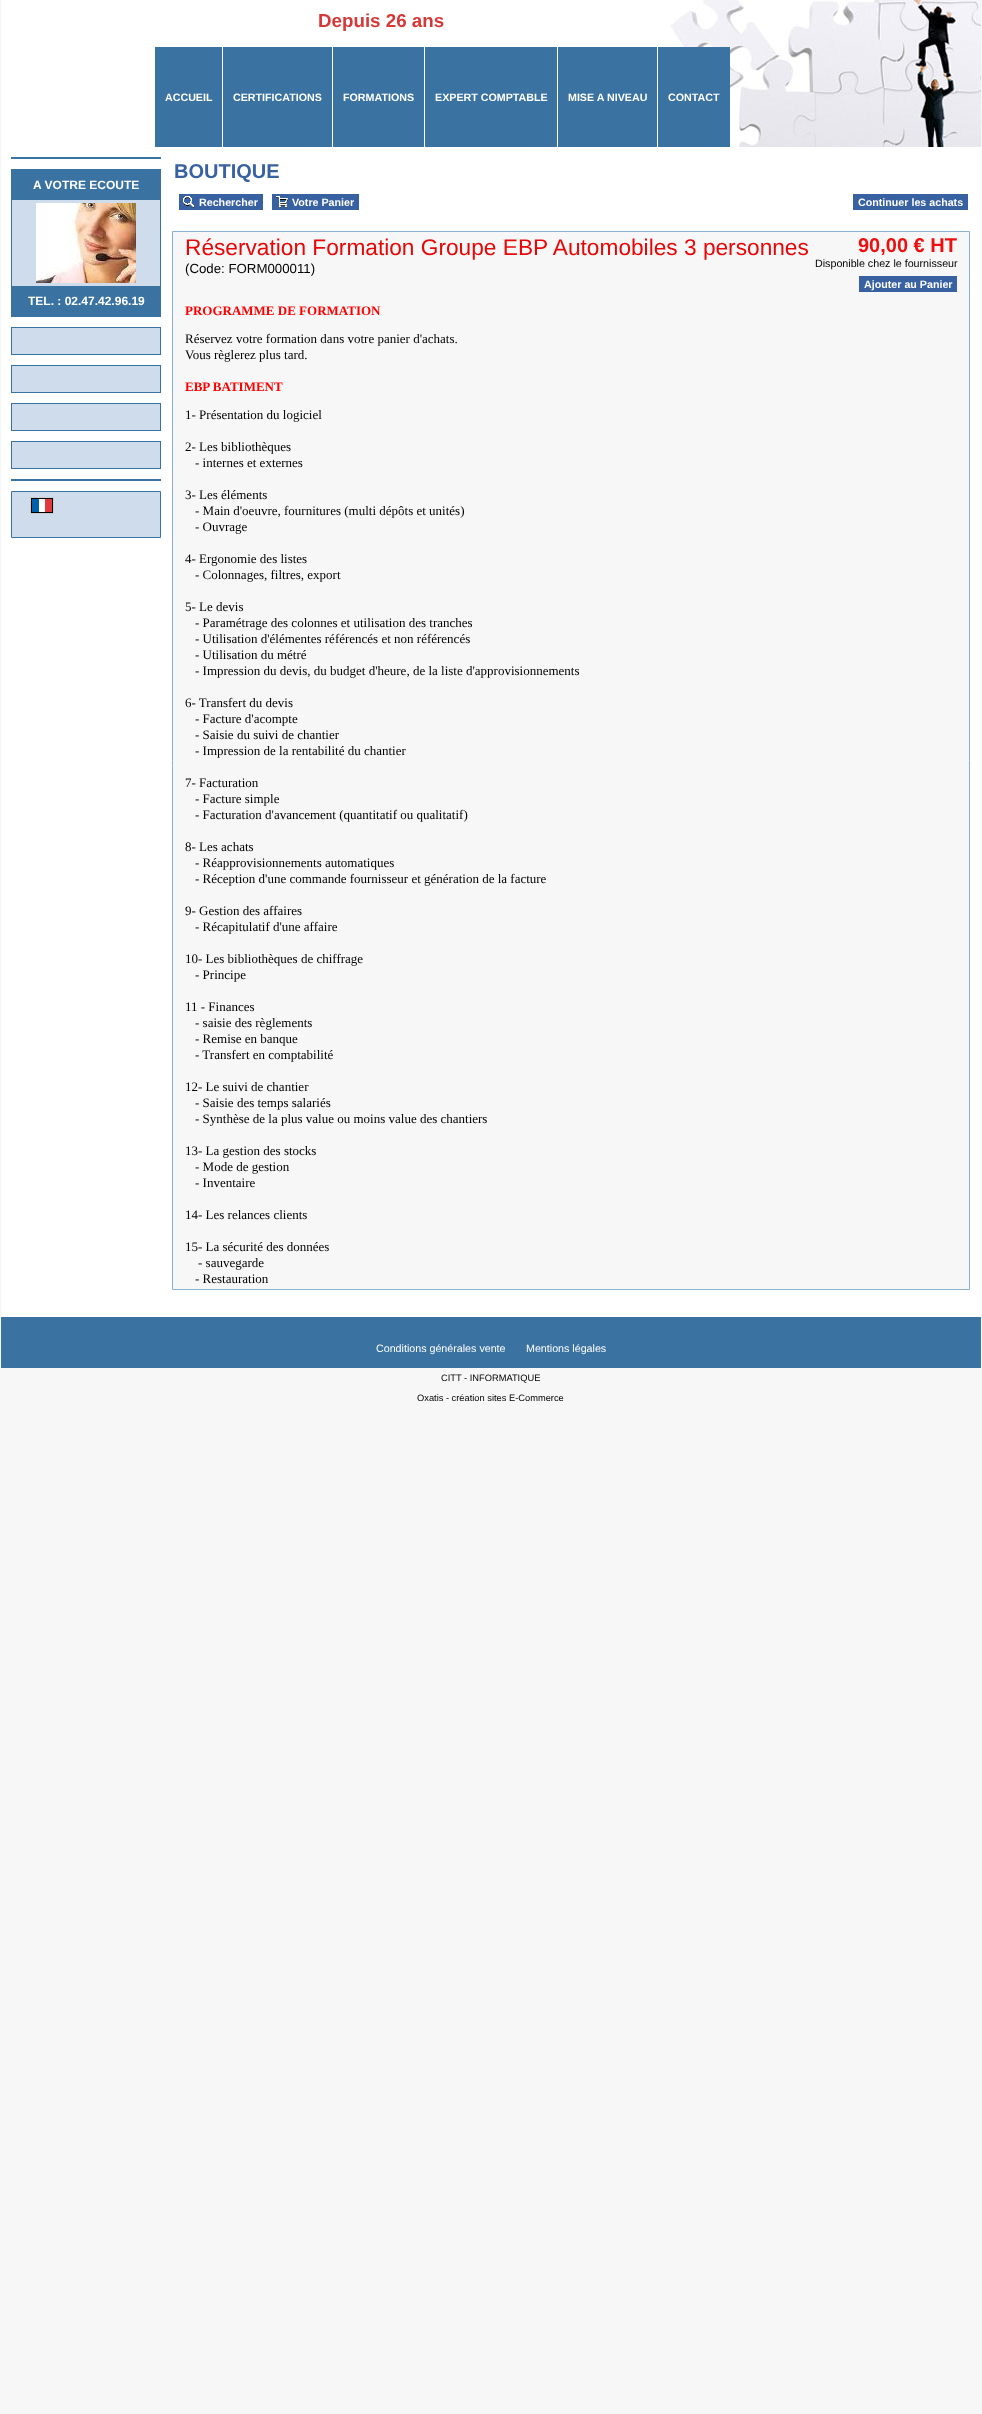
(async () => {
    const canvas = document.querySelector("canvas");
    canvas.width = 982;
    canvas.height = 2414;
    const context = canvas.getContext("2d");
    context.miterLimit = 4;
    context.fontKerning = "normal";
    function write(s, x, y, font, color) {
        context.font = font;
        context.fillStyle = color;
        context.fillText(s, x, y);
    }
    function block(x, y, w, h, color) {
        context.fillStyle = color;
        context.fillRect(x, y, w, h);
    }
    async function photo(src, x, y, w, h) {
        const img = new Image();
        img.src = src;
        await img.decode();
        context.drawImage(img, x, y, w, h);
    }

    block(0, 0, 982, 2414, "rgb(247, 247, 247)");
    block(1, 147, 980, 1170, "rgb(255, 255, 255)");
    await photo("media/1.png", 1, 0, 980, 147);
    write("Depuis 26 ans", 318, 27, "bold 18.75px Liberation Sans", "rgb(214, 56, 56)");
    block(155, 47, 67, 100, "rgb(58, 114, 161)");
    write("ACCUEIL", 165, 101, "bold 10.7px Liberation Sans", "rgb(255, 255, 255)");
    block(223, 47, 109, 100, "rgb(58, 114, 161)");
    write("CERTIFICATIONS", 233, 101, "bold 10.7px Liberation Sans", "rgb(255, 255, 255)");
    block(333, 47, 91, 100, "rgb(58, 114, 161)");
    write("FORMATIONS", 343, 101, "bold 10.7px Liberation Sans", "rgb(255, 255, 255)");
    block(425, 47, 132, 100, "rgb(58, 114, 161)");
    write("EXPERT COMPTABLE", 435, 101, "bold 10.7px Liberation Sans", "rgb(255, 255, 255)");
    block(558, 47, 99, 100, "rgb(58, 114, 161)");
    write("MISE A NIVEAU", 568, 101, "bold 10.7px Liberation Sans", "rgb(255, 255, 255)");
    block(658, 47, 72, 100, "rgb(58, 114, 161)");
    write("CONTACT", 668, 101, "bold 10.7px Liberation Sans", "rgb(255, 255, 255)");
    block(11, 157, 150, 2, "rgb(58, 114, 161)");
    block(11, 169, 150, 1, "rgb(58, 114, 161)");
    block(160, 170, 1, 146, "rgb(58, 114, 161)");
    block(11, 170, 149, 30, "rgb(58, 114, 161)");
    write("A VOTRE ECOUTE", 33, 189, "bold 12px Liberation Sans", "rgb(255, 255, 255)");
    block(12, 200, 148, 86, "rgb(206, 220, 235)");
    block(11, 200, 1, 116, "rgb(58, 114, 161)");
    await photo("media/2.png", 36, 203, 100, 80);
    block(12, 286, 148, 30, "rgb(58, 114, 161)");
    write("TEL. : 02.47.42.96.19", 28, 305, "bold 12px Liberation Sans", "rgb(255, 255, 255)");
    block(11, 316, 150, 1, "rgb(58, 114, 161)");
    block(11, 327, 150, 1, "rgb(58, 114, 161)");
    block(12, 328, 148, 26, "rgb(206, 220, 235)");
    block(160, 328, 1, 26, "rgb(58, 114, 161)");
    block(11, 328, 1, 26, "rgb(58, 114, 161)");
    block(11, 354, 150, 1, "rgb(58, 114, 161)");
    block(11, 365, 150, 1, "rgb(58, 114, 161)");
    block(12, 366, 148, 26, "rgb(206, 220, 235)");
    block(160, 366, 1, 26, "rgb(58, 114, 161)");
    block(11, 366, 1, 26, "rgb(58, 114, 161)");
    block(11, 392, 150, 1, "rgb(58, 114, 161)");
    block(11, 403, 150, 1, "rgb(58, 114, 161)");
    block(12, 404, 148, 26, "rgb(206, 220, 235)");
    block(160, 404, 1, 26, "rgb(58, 114, 161)");
    block(11, 404, 1, 26, "rgb(58, 114, 161)");
    block(11, 430, 150, 1, "rgb(58, 114, 161)");
    block(11, 441, 150, 1, "rgb(58, 114, 161)");
    block(12, 442, 148, 26, "rgb(206, 220, 235)");
    block(160, 442, 1, 26, "rgb(58, 114, 161)");
    block(11, 442, 1, 26, "rgb(58, 114, 161)");
    block(11, 468, 150, 1, "rgb(58, 114, 161)");
    block(11, 479, 150, 2, "rgb(58, 114, 161)");
    context.fillStyle = "rgb(206, 220, 235)";
    context.beginPath();
    context.rect(11.5, 491.5, 149, 46);
    context.fill();
    context.strokeStyle = "rgb(58, 114, 161)";
    context.stroke();
    await photo("media/3.png", 31, 498, 22, 15);
    context.strokeStyle = "rgb(204, 204, 204)";
    context.strokeRect(30.5, 497.5, 23, 16);
    write("BOUTIQUE", 174, 178, "bold 20px Liberation Sans", "rgb(56, 97, 161)");
    block(179, 194, 84, 16, "rgb(56, 97, 161)");
    await photo("media/4.png", 183, 196, 11, 12);
    write("Rechercher", 199, 206, "bold 10.7px Liberation Sans", "rgb(255, 255, 255)");
    block(272, 194, 87, 16, "rgb(56, 97, 161)");
    await photo("media/5.png", 276, 196, 12, 12);
    write("Votre Panier", 292, 206, "bold 10.7px Liberation Sans", "rgb(255, 255, 255)");
    block(853, 194, 115, 16, "rgb(56, 97, 161)");
    write("Continuer les achats", 858, 206, "bold 10.7px Liberation Sans", "rgb(255, 255, 255)");
    context.fillStyle = "rgb(247, 247, 247)";
    context.beginPath();
    context.rect(172.5, 231.5, 797, 1058);
    context.fill();
    context.strokeStyle = "rgb(138, 176, 211)";
    context.stroke();
    write("Réservation Formation Groupe EBP Automobiles 3 personnes", 185, 255, "22.7px Liberation Sans", "rgb(230, 8, 8)");
    write("(Code: FORM000011)", 185, 273, "13.25px Liberation Sans", "rgb(0, 0, 0)");
    write("90,00 € HT", 858, 252, "bold 20px Liberation Sans", "rgb(236, 16, 16)");
    write("Disponible chez le fournisseur", 815, 267, "10.7px Liberation Sans", "rgb(0, 0, 0)");
    block(859, 276, 98, 16, "rgb(56, 97, 161)");
    write("Ajouter au Panier", 864, 288, "bold 10.7px Liberation Sans", "rgb(255, 255, 255)");
    write("PROGRAMME DE FORMATION", 185, 315, "bold 13px Liberation Serif", "rgb(255, 0, 0)");
    write("Réservez votre formation dans votre panier d'achats.", 185, 343, "13px Liberation Serif", "rgb(0, 0, 0)");
    write("Vous règlerez plus tard.", 185, 359, "13px Liberation Serif", "rgb(0, 0, 0)");
    write("EBP BATIMENT", 185, 391, "bold 13px Liberation Serif", "rgb(255, 0, 0)");
    write("1- Présentation du logiciel", 185, 419, "13px Liberation Serif", "rgb(0, 0, 0)");
    write("2- Les bibliothèques", 185, 451, "13px Liberation Serif", "rgb(0, 0, 0)");
    write("- internes et externes", 195, 467, "13px Liberation Serif", "rgb(0, 0, 0)");
    write("3- Les éléments", 185, 499, "13px Liberation Serif", "rgb(0, 0, 0)");
    write("- Main d'oeuvre, fournitures (multi dépôts et unités)", 195, 515, "13px Liberation Serif", "rgb(0, 0, 0)");
    write("- Ouvrage", 195, 531, "13px Liberation Serif", "rgb(0, 0, 0)");
    write("4- Ergonomie des listes", 185, 563, "13px Liberation Serif", "rgb(0, 0, 0)");
    write("- Colonnages, filtres, export", 195, 579, "13px Liberation Serif", "rgb(0, 0, 0)");
    write("5- Le devis", 185, 611, "13px Liberation Serif", "rgb(0, 0, 0)");
    write("- Paramétrage des colonnes et utilisation des tranches", 195, 627, "13px Liberation Serif", "rgb(0, 0, 0)");
    write("- Utilisation d'élémentes référencés et non référencés", 195, 643, "13px Liberation Serif", "rgb(0, 0, 0)");
    write("- Utilisation du métré", 195, 659, "13px Liberation Serif", "rgb(0, 0, 0)");
    write("- Impression du devis, du budget d'heure, de la liste d'approvisionnements", 195, 675, "13px Liberation Serif", "rgb(0, 0, 0)");
    write("6- Transfert du devis", 185, 707, "13px Liberation Serif", "rgb(0, 0, 0)");
    write("- Facture d'acompte", 195, 723, "13px Liberation Serif", "rgb(0, 0, 0)");
    write("- Saisie du suivi de chantier", 195, 739, "13px Liberation Serif", "rgb(0, 0, 0)");
    write("- Impression de la rentabilité du chantier", 195, 755, "13px Liberation Serif", "rgb(0, 0, 0)");
    write("7- Facturation", 185, 787, "13px Liberation Serif", "rgb(0, 0, 0)");
    write("- Facture simple", 195, 803, "13px Liberation Serif", "rgb(0, 0, 0)");
    write("- Facturation d'avancement (quantitatif ou qualitatif)", 195, 819, "13px Liberation Serif", "rgb(0, 0, 0)");
    write("8- Les achats", 185, 851, "13px Liberation Serif", "rgb(0, 0, 0)");
    write("- Réapprovisionnements automatiques", 195, 867, "13px Liberation Serif", "rgb(0, 0, 0)");
    write("- Réception d'une commande fournisseur et génération de la facture", 195, 883, "13px Liberation Serif", "rgb(0, 0, 0)");
    write("9- Gestion des affaires", 185, 915, "13px Liberation Serif", "rgb(0, 0, 0)");
    write("- Récapitulatif d'une affaire", 195, 931, "13px Liberation Serif", "rgb(0, 0, 0)");
    write("10- Les bibliothèques de chiffrage", 185, 963, "13px Liberation Serif", "rgb(0, 0, 0)");
    write("- Principe", 195, 979, "13px Liberation Serif", "rgb(0, 0, 0)");
    write("11 - Finances", 185, 1011, "13px Liberation Serif", "rgb(0, 0, 0)");
    write("- saisie des règlements", 195, 1027, "13px Liberation Serif", "rgb(0, 0, 0)");
    write("- Remise en banque", 195, 1043, "13px Liberation Serif", "rgb(0, 0, 0)");
    write("- Transfert en comptabilité", 195, 1059, "13px Liberation Serif", "rgb(0, 0, 0)");
    write("12- Le suivi de chantier", 185, 1091, "13px Liberation Serif", "rgb(0, 0, 0)");
    write("- Saisie des temps salariés", 195, 1107, "13px Liberation Serif", "rgb(0, 0, 0)");
    write("- Synthèse de la plus value ou moins value des chantiers", 195, 1123, "13px Liberation Serif", "rgb(0, 0, 0)");
    write("13- La gestion des stocks", 185, 1155, "13px Liberation Serif", "rgb(0, 0, 0)");
    write("- Mode de gestion", 195, 1171, "13px Liberation Serif", "rgb(0, 0, 0)");
    write("- Inventaire", 195, 1187, "13px Liberation Serif", "rgb(0, 0, 0)");
    write("14- Les relances clients", 185, 1219, "13px Liberation Serif", "rgb(0, 0, 0)");
    write("15- La sécurité des données", 185, 1251, "13px Liberation Serif", "rgb(0, 0, 0)");
    write("- sauvegarde", 198, 1267, "13px Liberation Serif", "rgb(0, 0, 0)");
    write("- Restauration", 195, 1283, "13px Liberation Serif", "rgb(0, 0, 0)");
    block(1, 1317, 980, 51, "rgb(58, 114, 161)");
    write("Conditions générales vente", 376, 1352, "10.7px Liberation Sans", "rgb(255, 255, 255)");
    write("Mentions légales", 526, 1352, "10.7px Liberation Sans", "rgb(255, 255, 255)");
    write("CITT - INFORMATIQUE", 441, 1381, "9.3px Liberation Sans", "rgb(0, 0, 0)");
    write("Oxatis - création sites E-Commerce", 417, 1401, "9.3px Liberation Sans", "rgb(0, 0, 0)");
})();
